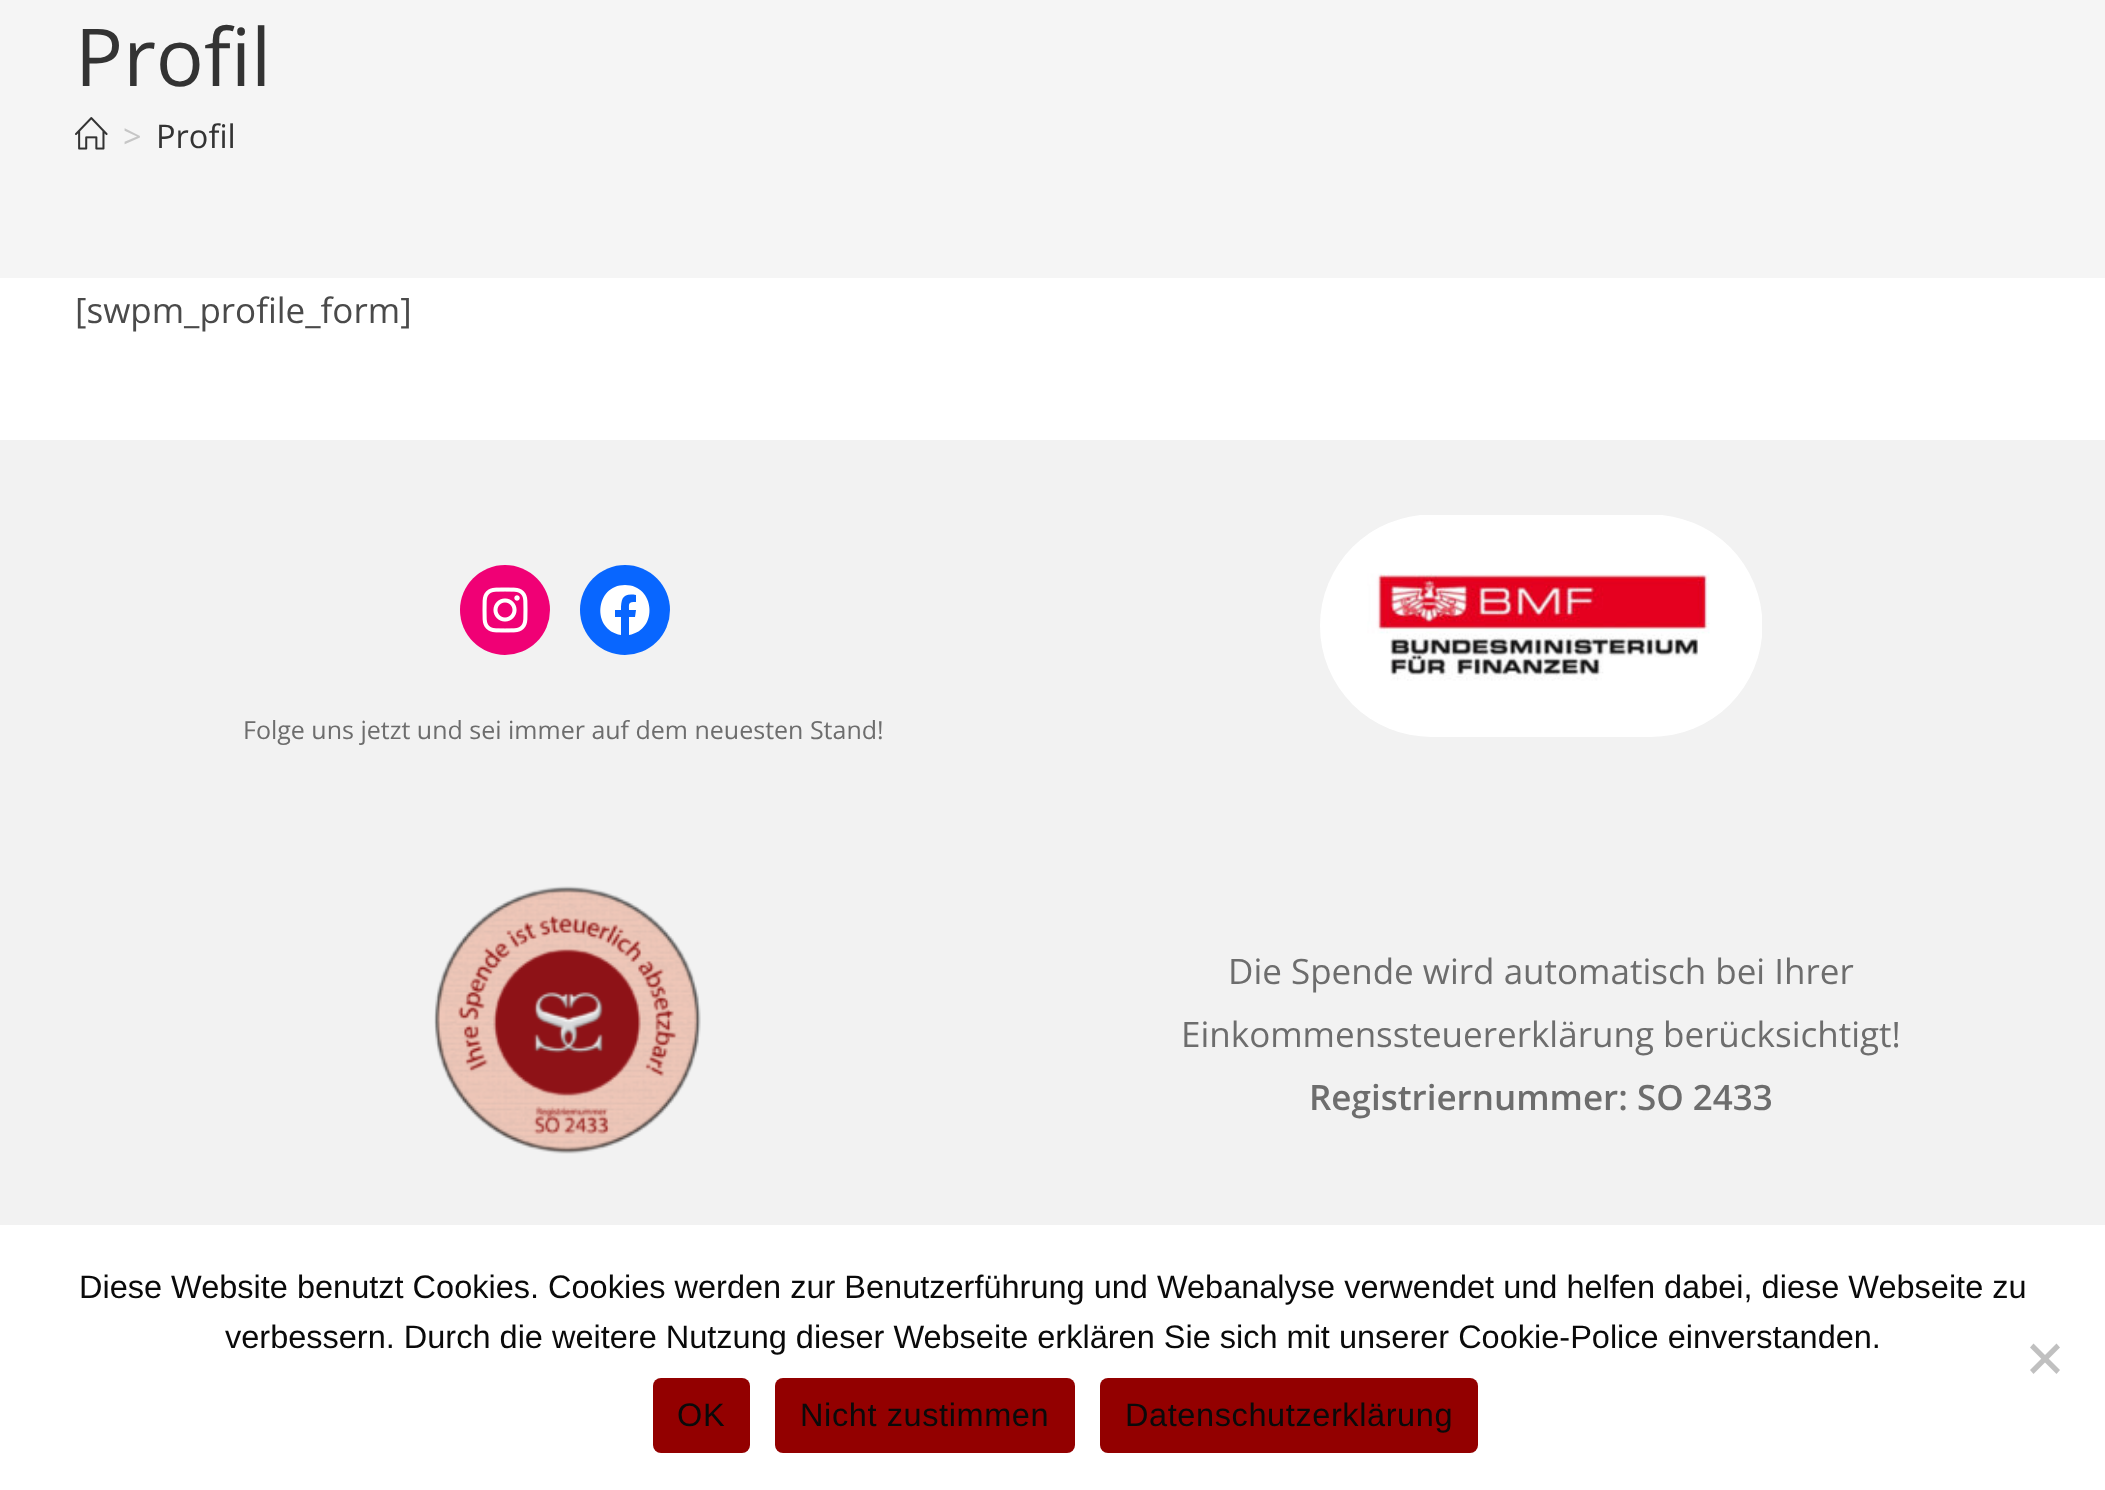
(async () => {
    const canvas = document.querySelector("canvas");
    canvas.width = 2105;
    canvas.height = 1490;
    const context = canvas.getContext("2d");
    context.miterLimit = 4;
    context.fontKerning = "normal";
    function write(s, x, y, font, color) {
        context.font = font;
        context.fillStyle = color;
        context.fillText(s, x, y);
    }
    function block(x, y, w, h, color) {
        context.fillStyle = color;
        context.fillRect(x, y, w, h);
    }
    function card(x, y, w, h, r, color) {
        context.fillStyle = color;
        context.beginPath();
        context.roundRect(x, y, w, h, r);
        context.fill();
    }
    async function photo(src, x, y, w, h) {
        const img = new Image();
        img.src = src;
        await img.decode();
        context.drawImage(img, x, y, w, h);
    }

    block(0, 0, 2105, 1490, "rgb(255, 255, 255)");
    block(0, 0, 2105, 278, "rgb(245, 245, 245)");
    write("Profil", 75, 86, "80px Open Sans", "rgb(51, 51, 51)");
    await photo("media/1.png", 75, 117, 33, 33);
    write(">", 123, 148, "32.5px Open Sans", "rgb(198, 198, 198)");
    write("Profil", 156, 148, "32.5px Open Sans", "rgb(51, 51, 51)");
    write("[swpm_profile_form]", 75, 323, "35px Open Sans", "rgb(74, 74, 74)");
    block(0, 440, 2105, 785, "rgb(242, 242, 242)");
    context.fillStyle = "rgb(240, 0, 117)";
    context.beginPath();
    context.arc(505, 610, 45, 0, Math.PI * 2);
    context.fill();
    await photo("media/2.png", 482, 587, 46, 46);
    context.fillStyle = "rgb(8, 102, 255)";
    context.beginPath();
    context.arc(625, 610, 45, 0, Math.PI * 2);
    context.fill();
    context.fillStyle = "rgb(255, 255, 255)";
    context.beginPath();
    context.moveTo(625, 585);
    context.bezierCurveTo(595, 585, 591, 630, 621, 635);
    context.lineTo(621, 617);
    context.lineTo(615, 617);
    context.lineTo(615, 610);
    context.lineTo(621, 610);
    context.bezierCurveTo(621, 598, 623, 593, 636, 595);
    context.lineTo(636, 602);
    context.bezierCurveTo(628, 602, 629, 603, 629, 610);
    context.lineTo(636, 610);
    context.lineTo(635, 617);
    context.lineTo(629, 617);
    context.lineTo(629, 635);
    context.bezierCurveTo(659, 630, 655, 585, 625, 585);
    context.closePath();
    context.fill();
    write("Folge uns jetzt und sei immer auf dem neuesten Stand!", 243, 739, "25px Open Sans", "rgb(109, 109, 109)");
    await photo("media/3.png", 1320, 515, 442, 222);
    await photo("media/4.png", 434, 886, 267, 268);
    write("Die Spende wird automatisch bei Ihrer", 1228, 984, "35px Open Sans", "rgb(109, 109, 109)");
    write("Einkommenssteuererklärung berücksichtigt!", 1181, 1047, "35px Open Sans", "rgb(109, 109, 109)");
    write("Registriernummer: SO 2433", 1309, 1110, "600 35px Open Sans", "rgb(109, 109, 109)");
    write("Diese Website benutzt Cookies. Cookies werden zur Benutzerführung und Webanalyse verwendet und helfen dabei, diese Webseite zu", 79, 1298, "32.5px Liberation Sans", "rgb(10, 10, 10)");
    write("verbessern. Durch die weitere Nutzung dieser Webseite erklären Sie sich mit unserer Cookie-Police einverstanden.", 225, 1348, "32.5px Liberation Sans", "rgb(10, 10, 10)");
    context.fillStyle = "rgb(192, 192, 192)";
    context.beginPath();
    context.moveTo(2056.5, 1343.5);
    context.lineTo(2060, 1347.5);
    context.lineTo(2033.5, 1374);
    context.lineTo(2030, 1370);
    context.closePath();
    context.fill();
    context.beginPath();
    context.moveTo(2030, 1347.5);
    context.lineTo(2033.5, 1343.5);
    context.lineTo(2060, 1370);
    context.lineTo(2056.5, 1374);
    context.closePath();
    context.fill();
    card(653, 1378, 97, 75, 8, "rgb(147, 0, 0)");
    context.letterSpacing = "0.6px";
    write("OK", 677, 1426, "32.5px Liberation Sans", "rgb(10, 10, 10)");
    card(775, 1378, 300, 75, 8, "rgb(147, 0, 0)");
    write("Nicht zustimmen", 800, 1426, "32.5px Liberation Sans", "rgb(10, 10, 10)");
    card(1100, 1378, 378, 75, 8, "rgb(147, 0, 0)");
    write("Datenschutzerklärung", 1125, 1426, "32.5px Liberation Sans", "rgb(10, 10, 10)");
})();
